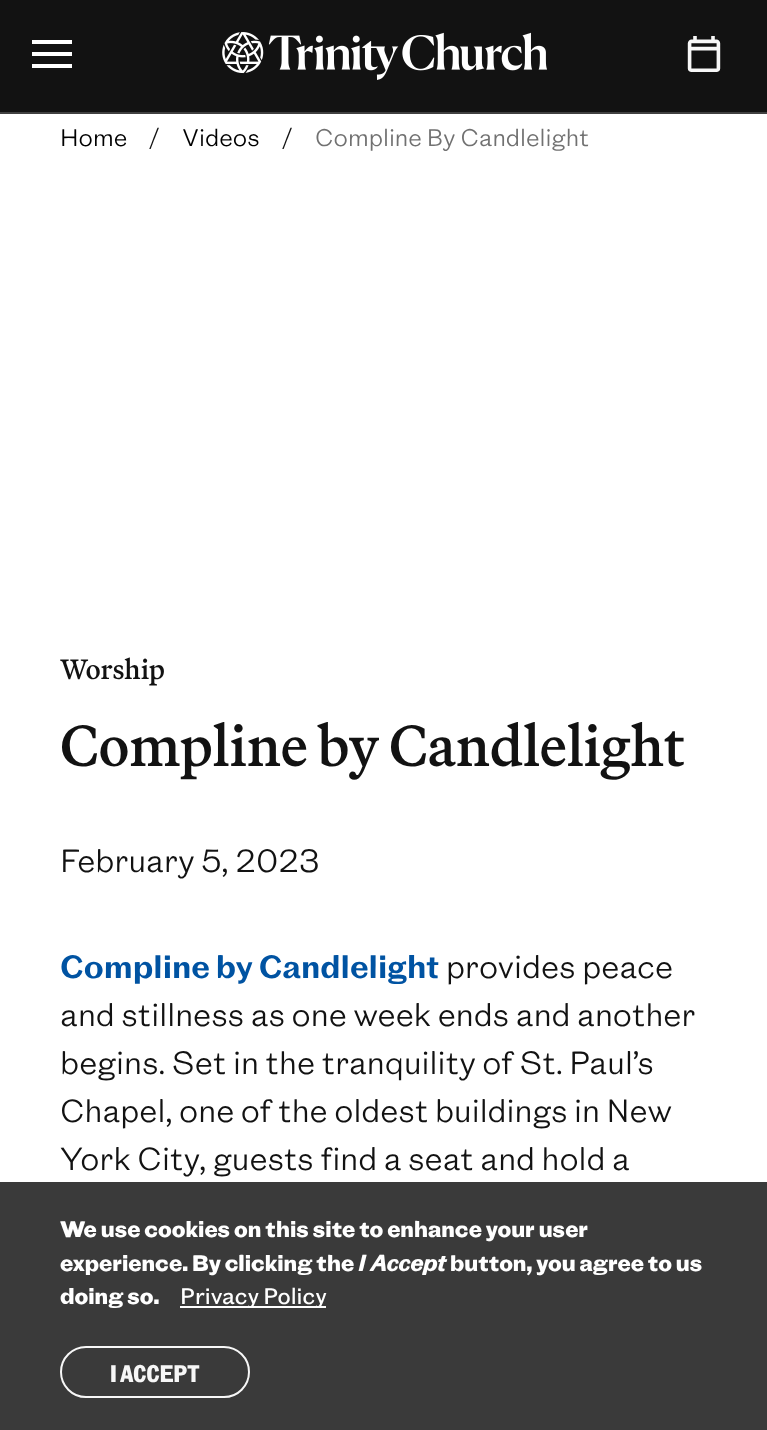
(async () => {
    const canvas = document.querySelector("canvas");
    canvas.width = 767;
    canvas.height = 1430;
    const context = canvas.getContext("2d");
    context.miterLimit = 4;
    context.fontKerning = "normal";
    function write(s, x, y, font, color) {
        context.font = font;
        context.fillStyle = color;
        context.fillText(s, x, y);
    }
    function block(x, y, w, h, color) {
        context.fillStyle = color;
        context.fillRect(x, y, w, h);
    }
    async function photo(src, x, y, w, h) {
        const img = new Image();
        img.src = src;
        await img.decode();
        context.drawImage(img, x, y, w, h);
    }

    block(0, 0, 767, 1430, "rgb(255, 255, 255)");
    block(0, 0, 767, 112, "rgb(18, 18, 18)");
    block(0, 112, 767, 2, "rgb(65, 65, 65)");
    block(32, 40, 40, 4, "rgb(255, 255, 255)");
    block(32, 52, 40, 4, "rgb(255, 255, 255)");
    block(32, 64, 40, 4, "rgb(255, 255, 255)");
    await photo("media/1.png", 222, 32, 325, 48);
    await photo("media/2.png", 687, 36, 34, 36);
    write("Home", 60, 146, "300 24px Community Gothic", "rgb(0, 0, 0)");
    write("/", 150, 146, "300 24px Community Gothic", "rgb(18, 18, 18)");
    write("Videos", 182, 146, "300 24px Community Gothic", "rgb(0, 0, 0)");
    write("/", 283, 146, "300 24px Community Gothic", "rgb(18, 18, 18)");
    write("Compline By Candlelight", 315, 146, "300 24px Community Gothic", "rgb(113, 113, 113)");
    write("Worship", 60, 679, "500 28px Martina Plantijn", "rgb(18, 18, 18)");
    write("Compline by Candlelight", 60, 766, "500 57.6px Martina Plantijn", "rgb(18, 18, 18)");
    write("February 5, 2023", 60, 872, "300 32px Community Gothic", "rgb(18, 18, 18)");
    write("Compline by Candlelight", 60, 978, "500 32px Community Gothic", "rgb(0, 83, 162)");
    write("provides peace", 446, 978, "300 32px Community Gothic", "rgb(18, 18, 18)");
    write("and stillness as one week ends and another", 60, 1026, "300 32px Community Gothic", "rgb(18, 18, 18)");
    write("begins. Set in the tranquility of St. Paul’s", 60, 1074, "300 32px Community Gothic", "rgb(18, 18, 18)");
    write("Chapel, one of the oldest buildings in New", 60, 1122, "300 32px Community Gothic", "rgb(18, 18, 18)");
    write("York City, guests find a seat and hold a", 60, 1170, "300 32px Community Gothic", "rgb(18, 18, 18)");
    block(0, 1182, 767, 248, "rgb(58, 58, 58)");
    write("We use cookies on this site to enhance your user", 60, 1237, "bold 22.4px Community Gothic", "rgb(255, 255, 255)");
    write("experience. By clicking the", 60, 1271, "bold 22.4px Community Gothic", "rgb(255, 255, 255)");
    write("I Accept", 358, 1271, "italic bold 22.4px Community Gothic", "rgb(255, 255, 255)");
    write("button, you agree to us", 450, 1271, "bold 22.4px Community Gothic", "rgb(255, 255, 255)");
    write("doing so.", 60, 1304, "bold 22.4px Community Gothic", "rgb(255, 255, 255)");
    block(180, 1306, 146, 2, "rgb(255, 255, 255)");
    write("Privacy Policy", 180, 1304, "22.4px Community Gothic", "rgb(255, 255, 255)");
    context.beginPath();
    context.roundRect(61, 1347, 188, 50, 25);
    context.strokeStyle = "rgb(247, 247, 247)";
    context.lineWidth = 2;
    context.stroke();
    write("I ACCEPT", 110, 1382, "bold 24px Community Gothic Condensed", "rgb(247, 247, 247)");
})();
